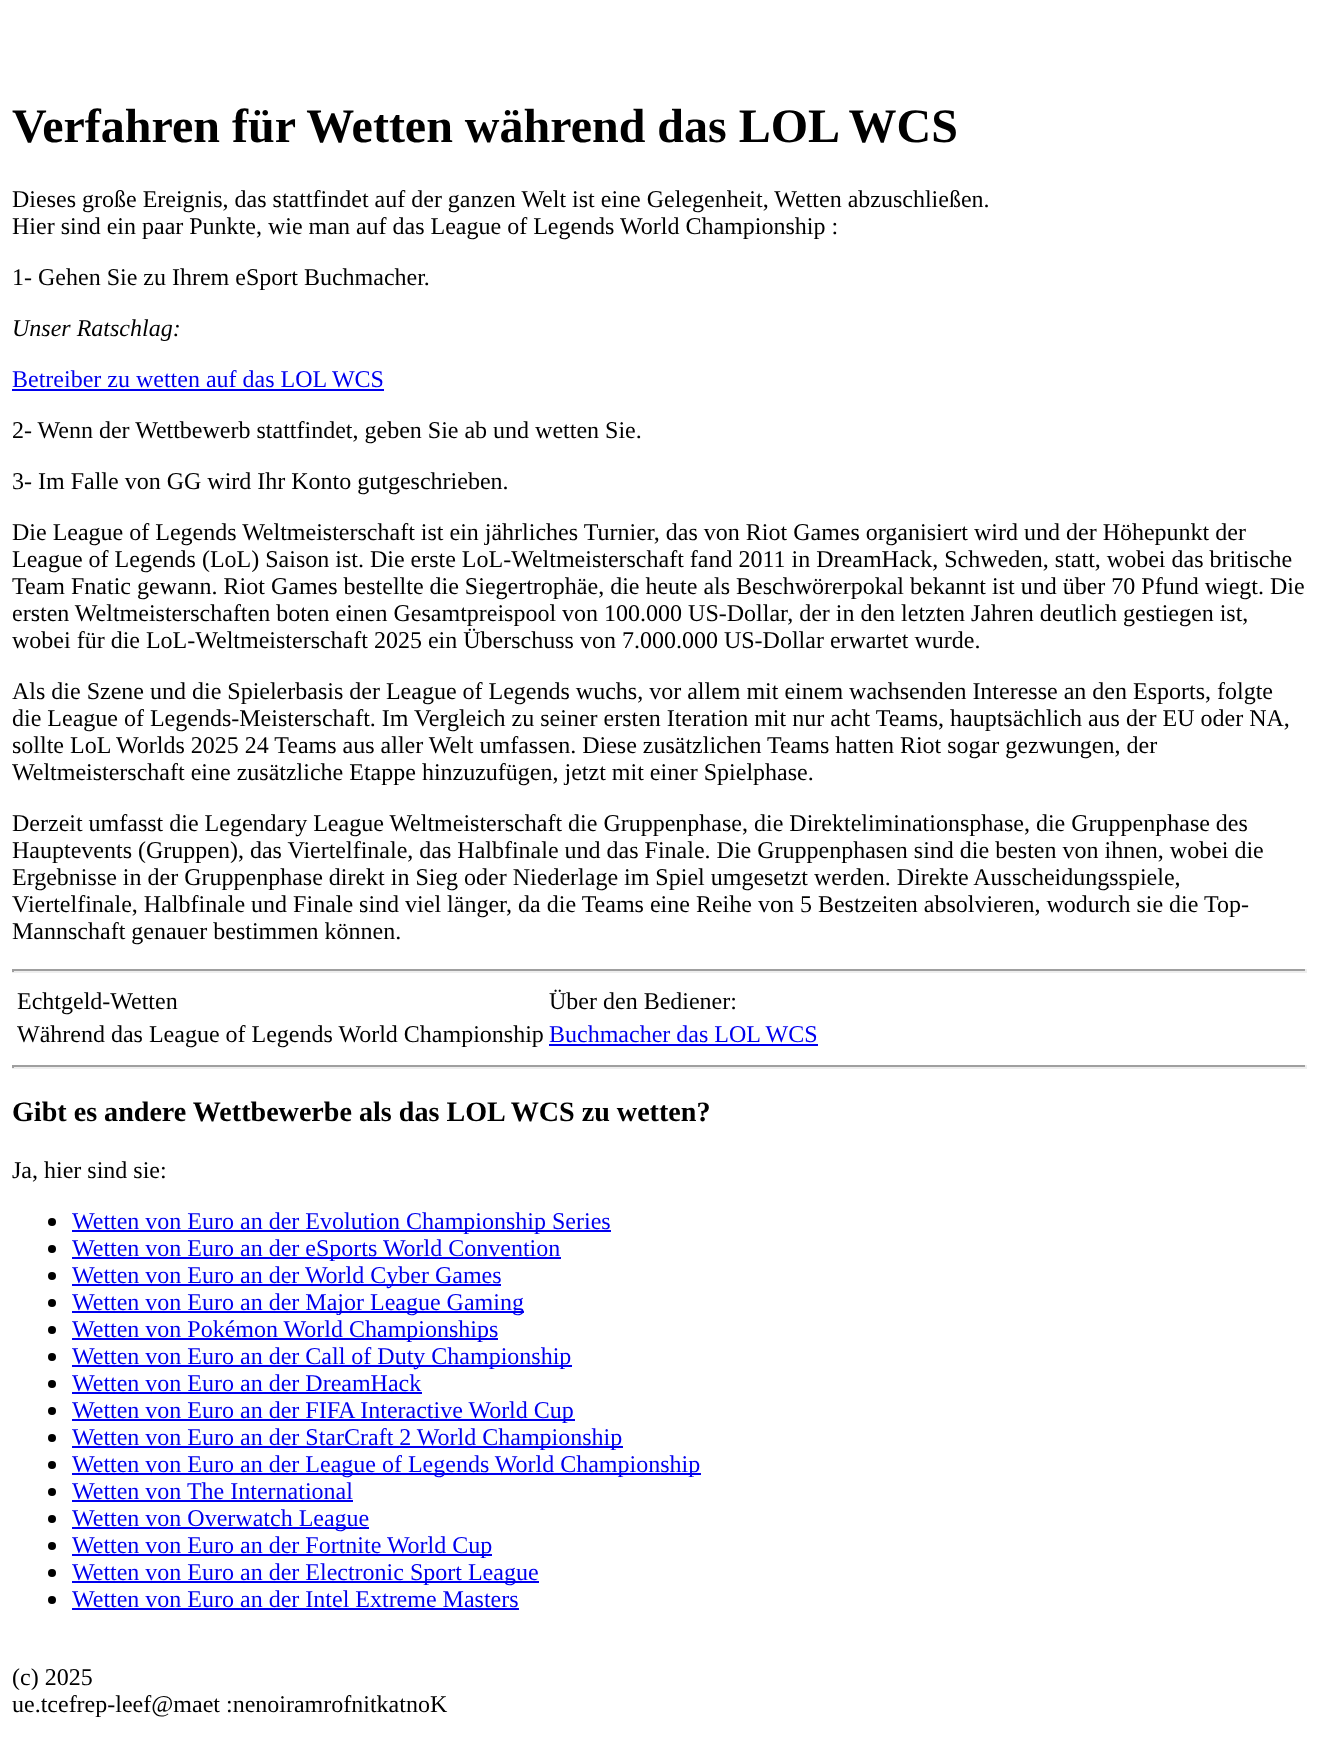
(async () => {
    const canvas = document.querySelector("canvas");
    canvas.width = 1318;
    canvas.height = 1739;
    const context = canvas.getContext("2d");
    context.miterLimit = 4;
    context.fontKerning = "normal";
    function write(s, x, y, font, color) {
        context.font = font;
        context.fillStyle = color;
        context.fillText(s, x, y);
    }
    function block(x, y, w, h, color) {
        context.fillStyle = color;
        context.fillRect(x, y, w, h);
    }

    block(0, 0, 1318, 1739, "rgb(255, 255, 255)");
    write("Verfahren für Wetten während das LOL WCS", 12, 142, "bold 48px Liberation Serif", "rgb(0, 0, 0)");
    write("Dieses große Ereignis, das stattfindet auf der ganzen Welt ist eine Gelegenheit, Wetten abzuschließen.", 12, 207, "24px Liberation Serif", "rgb(0, 0, 0)");
    write("Hier sind ein paar Punkte, wie man auf das League of Legends World Championship :", 12, 234, "24px Liberation Serif", "rgb(0, 0, 0)");
    write("1- Gehen Sie zu Ihrem eSport Buchmacher.", 12, 285, "24px Liberation Serif", "rgb(0, 0, 0)");
    write("Unser Ratschlag:", 12, 336, "italic 24px Liberation Serif", "rgb(0, 0, 0)");
    write("Betreiber zu wetten auf das LOL WCS", 12, 387, "24px Liberation Serif", "rgb(0, 0, 238)");
    block(12, 389, 372, 2, "rgb(0, 0, 238)");
    write("2- Wenn der Wettbewerb stattfindet, geben Sie ab und wetten Sie.", 12, 438, "24px Liberation Serif", "rgb(0, 0, 0)");
    write("3- Im Falle von GG wird Ihr Konto gutgeschrieben.", 12, 489, "24px Liberation Serif", "rgb(0, 0, 0)");
    write("Die League of Legends Weltmeisterschaft ist ein jährliches Turnier, das von Riot Games organisiert wird und der Höhepunkt der", 12, 540, "24px Liberation Serif", "rgb(0, 0, 0)");
    write("League of Legends (LoL) Saison ist. Die erste LoL-Weltmeisterschaft fand 2011 in DreamHack, Schweden, statt, wobei das britische", 12, 567, "24px Liberation Serif", "rgb(0, 0, 0)");
    write("Team Fnatic gewann. Riot Games bestellte die Siegertrophäe, die heute als Beschwörerpokal bekannt ist und über 70 Pfund wiegt. Die", 12, 594, "24px Liberation Serif", "rgb(0, 0, 0)");
    write("ersten Weltmeisterschaften boten einen Gesamtpreispool von 100.000 US-Dollar, der in den letzten Jahren deutlich gestiegen ist,", 12, 621, "24px Liberation Serif", "rgb(0, 0, 0)");
    write("wobei für die LoL-Weltmeisterschaft 2025 ein Überschuss von 7.000.000 US-Dollar erwartet wurde.", 12, 648, "24px Liberation Serif", "rgb(0, 0, 0)");
    write("Als die Szene und die Spielerbasis der League of Legends wuchs, vor allem mit einem wachsenden Interesse an den Esports, folgte", 12, 699, "24px Liberation Serif", "rgb(0, 0, 0)");
    write("die League of Legends-Meisterschaft. Im Vergleich zu seiner ersten Iteration mit nur acht Teams, hauptsächlich aus der EU oder NA,", 12, 726, "24px Liberation Serif", "rgb(0, 0, 0)");
    write("sollte LoL Worlds 2025 24 Teams aus aller Welt umfassen. Diese zusätzlichen Teams hatten Riot sogar gezwungen, der", 12, 753, "24px Liberation Serif", "rgb(0, 0, 0)");
    write("Weltmeisterschaft eine zusätzliche Etappe hinzuzufügen, jetzt mit einer Spielphase.", 12, 780, "24px Liberation Serif", "rgb(0, 0, 0)");
    write("Derzeit umfasst die Legendary League Weltmeisterschaft die Gruppenphase, die Direkteliminationsphase, die Gruppenphase des", 12, 831, "24px Liberation Serif", "rgb(0, 0, 0)");
    write("Hauptevents (Gruppen), das Viertelfinale, das Halbfinale und das Finale. Die Gruppenphasen sind die besten von ihnen, wobei die", 12, 858, "24px Liberation Serif", "rgb(0, 0, 0)");
    write("Ergebnisse in der Gruppenphase direkt in Sieg oder Niederlage im Spiel umgesetzt werden. Direkte Ausscheidungsspiele,", 12, 885, "24px Liberation Serif", "rgb(0, 0, 0)");
    write("Viertelfinale, Halbfinale und Finale sind viel länger, da die Teams eine Reihe von 5 Bestzeiten absolvieren, wodurch sie die Top-", 12, 912, "24px Liberation Serif", "rgb(0, 0, 0)");
    write("Mannschaft genauer bestimmen können.", 12, 939, "24px Liberation Serif", "rgb(0, 0, 0)");
    block(12, 969, 1295, 2, "rgb(159, 159, 159)");
    block(1305, 969, 2, 3, "rgb(238, 238, 238)");
    block(12, 971, 1295, 2, "rgb(238, 238, 238)");
    block(12, 969, 2, 3, "rgb(159, 159, 159)");
    write("Echtgeld-Wetten", 17, 1009, "24px Liberation Serif", "rgb(0, 0, 0)");
    write("Über den Bediener:", 549, 1009, "24px Liberation Serif", "rgb(0, 0, 0)");
    write("Während das League of Legends World Championship", 17, 1042, "24px Liberation Serif", "rgb(0, 0, 0)");
    write("Buchmacher das LOL WCS", 549, 1042, "24px Liberation Serif", "rgb(0, 0, 238)");
    block(549, 1044, 269, 2, "rgb(0, 0, 238)");
    block(12, 1065, 1295, 2, "rgb(159, 159, 159)");
    block(1305, 1065, 2, 3, "rgb(238, 238, 238)");
    block(12, 1067, 1295, 2, "rgb(238, 238, 238)");
    block(12, 1065, 2, 3, "rgb(159, 159, 159)");
    write("Gibt es andere Wettbewerbe als das LOL WCS zu wetten?", 12, 1121, "bold 28.1px Liberation Serif", "rgb(0, 0, 0)");
    write("Ja, hier sind sie:", 12, 1178, "24px Liberation Serif", "rgb(0, 0, 0)");
    context.beginPath();
    context.arc(52, 1222, 4, 0, Math.PI * 2);
    context.fill();
    block(72, 1230, 539, 2, "rgb(0, 0, 238)");
    write("Wetten von Euro an der Evolution Championship Series", 72, 1229, "24px Liberation Serif", "rgb(0, 0, 238)");
    context.fillStyle = "rgb(0, 0, 0)";
    context.beginPath();
    context.arc(52, 1249, 4, 0, Math.PI * 2);
    context.fill();
    block(72, 1257, 489, 2, "rgb(0, 0, 238)");
    write("Wetten von Euro an der eSports World Convention", 72, 1256, "24px Liberation Serif", "rgb(0, 0, 238)");
    context.fillStyle = "rgb(0, 0, 0)";
    context.beginPath();
    context.arc(52, 1276, 4, 0, Math.PI * 2);
    context.fill();
    block(72, 1284, 429, 2, "rgb(0, 0, 238)");
    write("Wetten von Euro an der World Cyber Games", 72, 1283, "24px Liberation Serif", "rgb(0, 0, 238)");
    context.fillStyle = "rgb(0, 0, 0)";
    context.beginPath();
    context.arc(52, 1303, 4, 0, Math.PI * 2);
    context.fill();
    block(72, 1311, 452, 2, "rgb(0, 0, 238)");
    write("Wetten von Euro an der Major League Gaming", 72, 1310, "24px Liberation Serif", "rgb(0, 0, 238)");
    context.fillStyle = "rgb(0, 0, 0)";
    context.beginPath();
    context.arc(52, 1330, 4, 0, Math.PI * 2);
    context.fill();
    block(72, 1338, 426, 2, "rgb(0, 0, 238)");
    write("Wetten von Pokémon World Championships", 72, 1337, "24px Liberation Serif", "rgb(0, 0, 238)");
    context.fillStyle = "rgb(0, 0, 0)";
    context.beginPath();
    context.arc(52, 1357, 4, 0, Math.PI * 2);
    context.fill();
    block(72, 1365, 500, 2, "rgb(0, 0, 238)");
    write("Wetten von Euro an der Call of Duty Championship", 72, 1364, "24px Liberation Serif", "rgb(0, 0, 238)");
    context.fillStyle = "rgb(0, 0, 0)";
    context.beginPath();
    context.arc(52, 1384, 4, 0, Math.PI * 2);
    context.fill();
    write("Wetten von Euro an der DreamHack", 72, 1391, "24px Liberation Serif", "rgb(0, 0, 238)");
    block(72, 1392, 350, 2, "rgb(0, 0, 238)");
    context.fillStyle = "rgb(0, 0, 0)";
    context.beginPath();
    context.arc(52, 1411, 4, 0, Math.PI * 2);
    context.fill();
    block(72, 1419, 503, 2, "rgb(0, 0, 238)");
    write("Wetten von Euro an der FIFA Interactive World Cup", 72, 1418, "24px Liberation Serif", "rgb(0, 0, 238)");
    context.fillStyle = "rgb(0, 0, 0)";
    context.beginPath();
    context.arc(52, 1438, 4, 0, Math.PI * 2);
    context.fill();
    block(72, 1446, 551, 2, "rgb(0, 0, 238)");
    write("Wetten von Euro an der StarCraft 2 World Championship", 72, 1445, "24px Liberation Serif", "rgb(0, 0, 238)");
    context.fillStyle = "rgb(0, 0, 0)";
    context.beginPath();
    context.arc(52, 1465, 4, 0, Math.PI * 2);
    context.fill();
    block(72, 1473, 629, 2, "rgb(0, 0, 238)");
    write("Wetten von Euro an der League of Legends World Championship", 72, 1472, "24px Liberation Serif", "rgb(0, 0, 238)");
    context.fillStyle = "rgb(0, 0, 0)";
    context.beginPath();
    context.arc(52, 1492, 4, 0, Math.PI * 2);
    context.fill();
    write("Wetten von The International", 72, 1499, "24px Liberation Serif", "rgb(0, 0, 238)");
    block(72, 1500, 281, 2, "rgb(0, 0, 238)");
    context.fillStyle = "rgb(0, 0, 0)";
    context.beginPath();
    context.arc(52, 1519, 4, 0, Math.PI * 2);
    context.fill();
    block(72, 1527, 297, 2, "rgb(0, 0, 238)");
    write("Wetten von Overwatch League", 72, 1526, "24px Liberation Serif", "rgb(0, 0, 238)");
    context.fillStyle = "rgb(0, 0, 0)";
    context.beginPath();
    context.arc(52, 1546, 4, 0, Math.PI * 2);
    context.fill();
    block(72, 1554, 420, 2, "rgb(0, 0, 238)");
    write("Wetten von Euro an der Fortnite World Cup", 72, 1553, "24px Liberation Serif", "rgb(0, 0, 238)");
    context.fillStyle = "rgb(0, 0, 0)";
    context.beginPath();
    context.arc(52, 1573, 4, 0, Math.PI * 2);
    context.fill();
    block(72, 1581, 467, 2, "rgb(0, 0, 238)");
    write("Wetten von Euro an der Electronic Sport League", 72, 1580, "24px Liberation Serif", "rgb(0, 0, 238)");
    context.fillStyle = "rgb(0, 0, 0)";
    context.beginPath();
    context.arc(52, 1600, 4, 0, Math.PI * 2);
    context.fill();
    write("Wetten von Euro an der Intel Extreme Masters", 72, 1607, "24px Liberation Serif", "rgb(0, 0, 238)");
    block(72, 1608, 447, 2, "rgb(0, 0, 238)");
    write("(c) 2025", 12, 1685, "24px Liberation Serif", "rgb(0, 0, 0)");
    write("ue.tcefrep-leef@maet :nenoiramrofnitkatnoK", 12, 1712, "24px Liberation Serif", "rgb(0, 0, 0)");
})();
